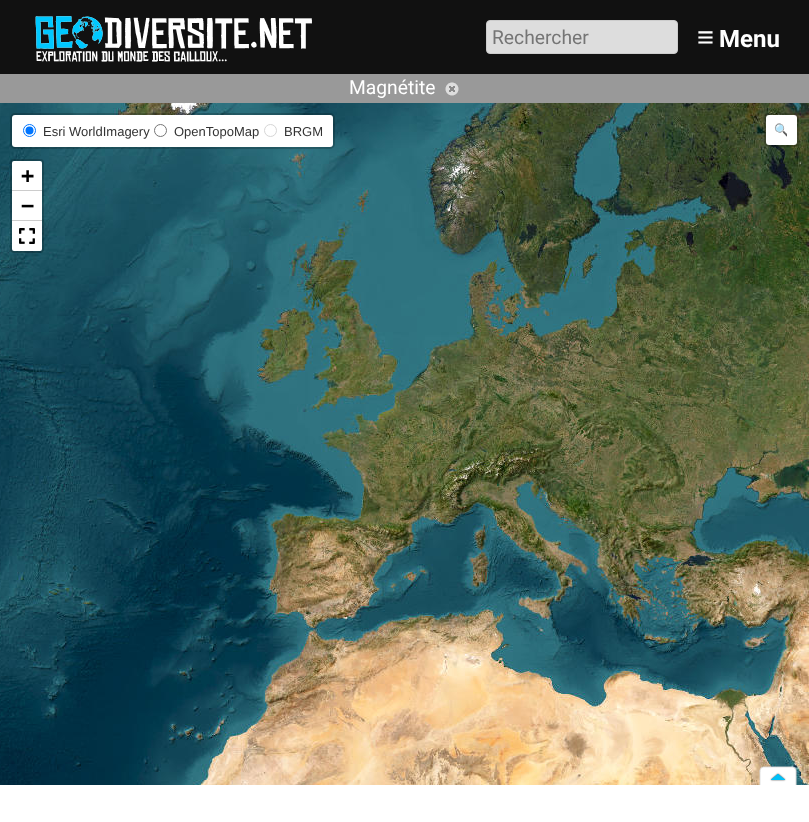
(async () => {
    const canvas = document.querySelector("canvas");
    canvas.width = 809;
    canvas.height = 822;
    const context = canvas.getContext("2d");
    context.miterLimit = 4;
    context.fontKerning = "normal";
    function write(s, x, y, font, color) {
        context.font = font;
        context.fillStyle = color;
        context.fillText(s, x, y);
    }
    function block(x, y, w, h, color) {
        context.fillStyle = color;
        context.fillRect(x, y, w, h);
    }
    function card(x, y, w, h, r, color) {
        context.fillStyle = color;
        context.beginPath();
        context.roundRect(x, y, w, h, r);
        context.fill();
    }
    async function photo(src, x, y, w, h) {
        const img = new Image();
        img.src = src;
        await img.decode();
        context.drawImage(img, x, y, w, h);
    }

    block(0, 0, 809, 822, "rgb(17, 17, 17)");
    await photo("media/1.png", 35, 16, 277, 46);
    context.fillStyle = "rgb(221, 221, 221)";
    context.beginPath();
    context.roundRect(486.5, 20.5, 191, 33, 3.5);
    context.fill();
    context.strokeStyle = "rgb(204, 204, 204)";
    context.stroke();
    write("Rechercher", 492, 44, "19.25px Roboto", "rgb(117, 117, 117)");
    write("≡", 697, 47, "bold 29px Liberation Sans", "rgb(255, 255, 255)");
    write("Menu", 719, 47, "bold 24px Roboto", "rgb(255, 255, 255)");
    block(0, 74, 809, 29, "rgb(153, 153, 153)");
    write("Magnétite", 349, 94, "19.25px Roboto", "rgb(255, 255, 255)");
    await photo("media/2.png", 445, 82, 14, 14);
    await photo("media/3.png", 0, 103, 121, 197);
    await photo("media/4.png", 121, 103, 256, 197);
    await photo("media/5.png", 377, 103, 256, 197);
    await photo("media/6.png", 633, 103, 176, 197);
    await photo("media/7.png", 0, 300, 121, 256);
    await photo("media/8.png", 121, 300, 256, 256);
    await photo("media/9.png", 377, 300, 256, 256);
    await photo("media/10.png", 633, 300, 176, 256);
    await photo("media/11.png", 0, 556, 121, 229);
    await photo("media/12.png", 121, 556, 256, 229);
    await photo("media/13.png", 377, 556, 256, 229);
    await photo("media/14.png", 633, 556, 176, 229);
    card(12, 115, 321, 32, 3, "rgb(255, 255, 255)");
    context.beginPath();
    context.roundRect(11, 114, 323, 34, 4);
    context.strokeStyle = "rgba(0, 0, 0, 0.2)";
    context.lineWidth = 2;
    context.stroke();
    context.beginPath();
    context.arc(29.5, 130.5, 6, 0, Math.PI * 2);
    context.strokeStyle = "rgb(0, 117, 255)";
    context.lineWidth = 1;
    context.stroke();
    context.fillStyle = "rgb(0, 117, 255)";
    context.beginPath();
    context.arc(29.5, 130.5, 4, 0, Math.PI * 2);
    context.fill();
    write("Esri WorldImagery", 43, 136, "13px Liberation Sans", "rgb(51, 51, 51)");
    context.beginPath();
    context.arc(160.5, 130.5, 6, 0, Math.PI * 2);
    context.strokeStyle = "rgb(118, 118, 118)";
    context.stroke();
    write("OpenTopoMap", 174, 136, "13px Liberation Sans", "rgb(51, 51, 51)");
    context.beginPath();
    context.arc(270.5, 130.5, 6, 0, Math.PI * 2);
    context.strokeStyle = "rgb(214, 214, 214)";
    context.stroke();
    write("BRGM", 284, 136, "13px Liberation Sans", "rgb(51, 51, 51)");
    context.beginPath();
    context.roundRect(11, 160, 32, 92, 3);
    context.strokeStyle = "rgba(0, 0, 0, 0.2)";
    context.lineWidth = 2;
    context.stroke();
    context.fillStyle = "rgb(255, 255, 255)";
    context.beginPath();
    context.roundRect(12, 161, 30, 30, [2, 2, 0, 0]);
    context.fill();
    block(12, 190, 30, 1, "rgb(204, 204, 204)");
    write("+", 21, 183, "bold 22px DejaVu Sans Mono", "rgb(0, 0, 0)");
    block(12, 191, 30, 29, "rgb(255, 255, 255)");
    block(12, 220, 30, 1, "rgb(204, 204, 204)");
    write("−", 21, 213, "bold 22px DejaVu Sans Mono", "rgb(0, 0, 0)");
    context.fillStyle = "rgb(255, 255, 255)";
    context.beginPath();
    context.roundRect(12, 221, 30, 30, [0, 0, 2, 2]);
    context.fill();
    await photo("media/15.png", 19, 228, 16, 16);
    card(766, 115, 31, 30, 3, "rgb(255, 255, 255)");
    context.beginPath();
    context.roundRect(765, 114, 33, 32, 4);
    context.stroke();
    context.save();
    context.beginPath();
    context.rect(772, 122, 15, 16);
    context.clip();
    write("🔍", 774, 134, "12px Noto Color Emoji", "rgb(117, 117, 117)");
    context.restore();
    block(0, 785, 809, 37, "rgb(255, 255, 255)");
    await photo("media/16.png", 759, 766, 38, 19);
})();
